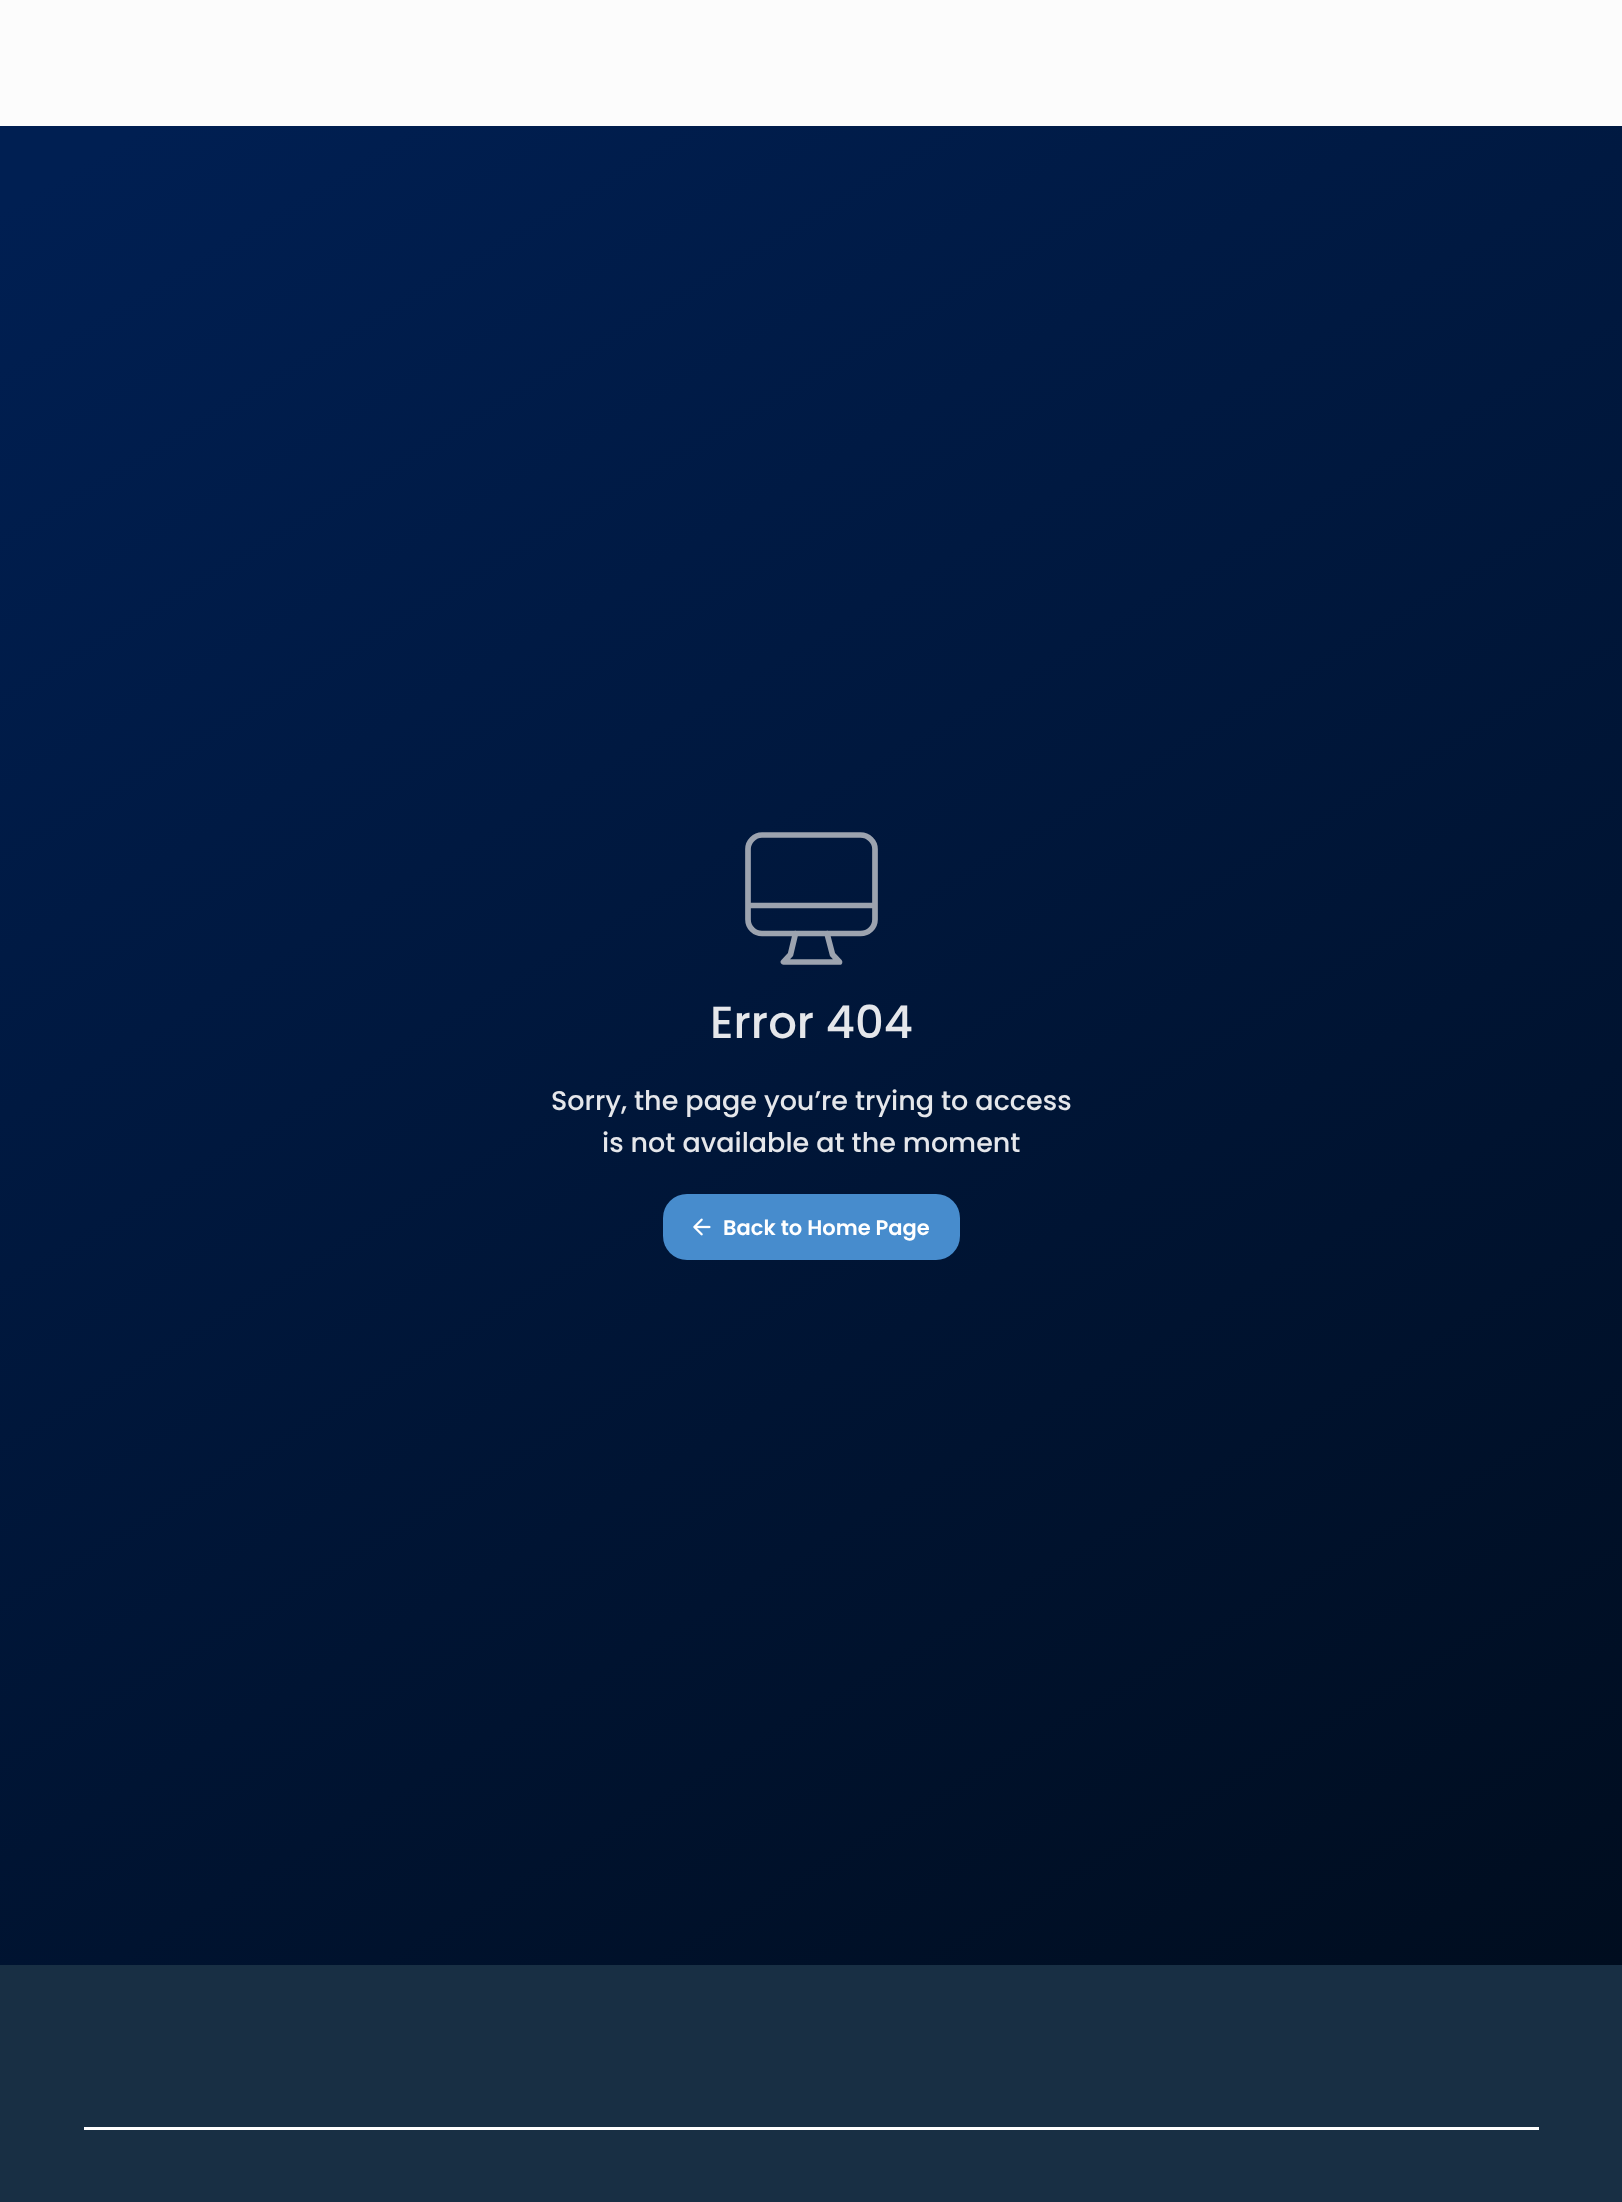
(async () => {
    const canvas = document.querySelector("canvas");
    canvas.width = 1622;
    canvas.height = 2202;
    const context = canvas.getContext("2d");
    context.miterLimit = 4;
    context.fontKerning = "normal";
    function write(s, x, y, font, color) {
        context.font = font;
        context.fillStyle = color;
        context.fillText(s, x, y);
    }
    function block(x, y, w, h, color) {
        context.fillStyle = color;
        context.fillRect(x, y, w, h);
    }
    function card(x, y, w, h, r, color) {
        context.fillStyle = color;
        context.beginPath();
        context.roundRect(x, y, w, h, r);
        context.fill();
    }
    async function photo(src, x, y, w, h) {
        const img = new Image();
        img.src = src;
        await img.decode();
        context.drawImage(img, x, y, w, h);
    }
    let gradient;

    block(0, 0, 1622, 2202, "rgb(255, 255, 255)");
    block(0, 0, 1622, 126, "rgb(252, 252, 252)");
    gradient = context.createLinearGradient(195, 10, 1428, 2081);
    gradient.addColorStop(0.03, "rgb(0, 31, 82)");
    gradient.addColorStop(1, "rgb(0, 13, 31)");
    context.fillStyle = gradient;
    context.fillRect(0, 126, 1622, 1839);
    context.beginPath();
    context.moveTo(795.5, 933.5);
    context.lineTo(790.5, 954.5);
    context.lineTo(783.5, 962);
    context.lineTo(839.5, 962);
    context.lineTo(832.5, 954.5);
    context.lineTo(827, 933.5);
    context.moveTo(748, 905.5);
    context.lineTo(875, 905.5);
    context.moveTo(762, 933.5);
    context.lineTo(860.5, 933.5);
    context.bezierCurveTo(868.5, 933.5, 875, 927.5, 875, 919.5);
    context.lineTo(875, 849);
    context.bezierCurveTo(875, 841.5, 868.5, 835, 860.5, 835);
    context.lineTo(762, 835);
    context.bezierCurveTo(754.5, 835, 748, 841.5, 748, 849);
    context.lineTo(748, 919.5);
    context.bezierCurveTo(748, 927.5, 754.5, 933.5, 762, 933.5);
    context.closePath();
    context.strokeStyle = "rgb(156, 163, 175)";
    context.lineWidth = 5.7;
    context.lineCap = "round";
    context.lineJoin = "round";
    context.stroke();
    write("Error 404", 710, 1038, "500 45px Poppins", "rgb(229, 231, 235)");
    write("Sorry, the page you’re trying to access", 551, 1110, "500 27px Poppins", "rgb(229, 231, 235)");
    write("is not available at the moment", 602, 1152, "500 27px Poppins", "rgb(229, 231, 235)");
    card(663, 1194, 297, 66, 24, "rgb(71, 140, 205)");
    await photo("media/1.png", 693, 1218, 18, 18);
    write("Back to Home Page", 723, 1235, "600 21px Poppins", "rgb(255, 255, 255)");
    block(0, 1965, 1622, 237, "rgb(24, 47, 68)");
    block(84, 2127, 1455, 3, "rgb(255, 255, 255)");
})();
